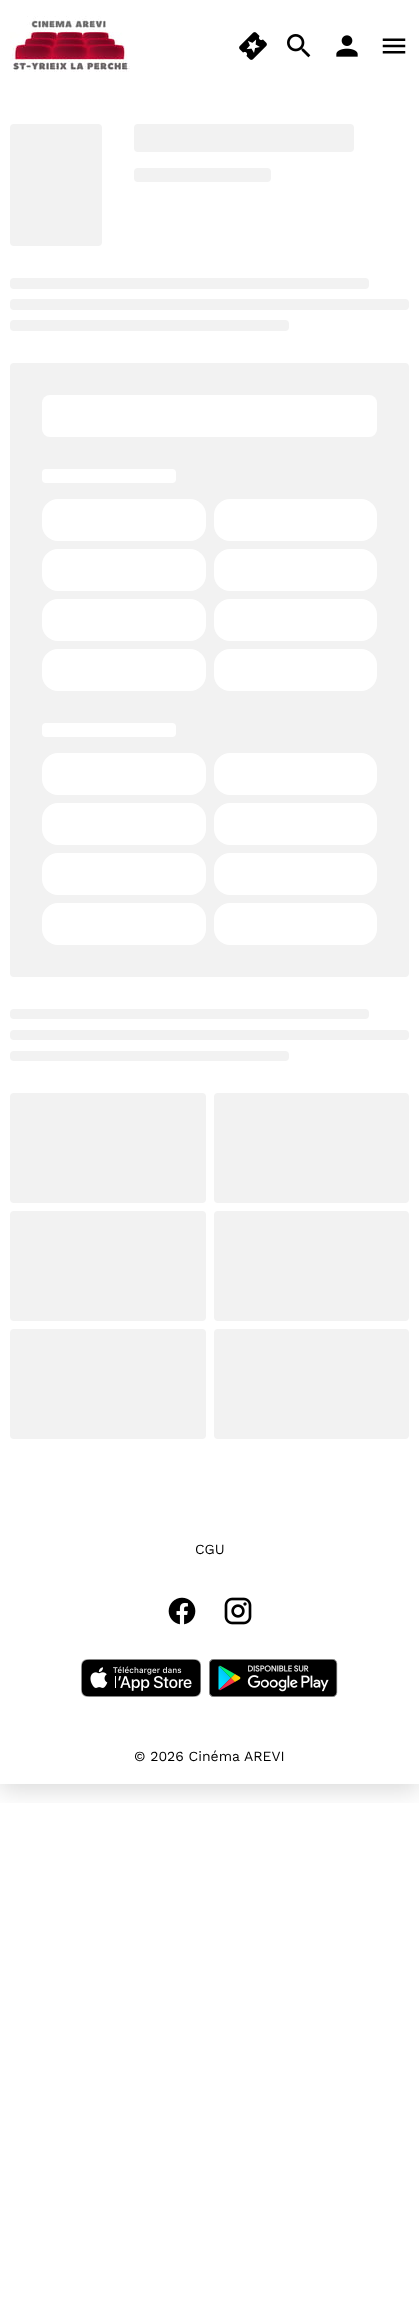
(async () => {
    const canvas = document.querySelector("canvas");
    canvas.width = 419;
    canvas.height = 2303;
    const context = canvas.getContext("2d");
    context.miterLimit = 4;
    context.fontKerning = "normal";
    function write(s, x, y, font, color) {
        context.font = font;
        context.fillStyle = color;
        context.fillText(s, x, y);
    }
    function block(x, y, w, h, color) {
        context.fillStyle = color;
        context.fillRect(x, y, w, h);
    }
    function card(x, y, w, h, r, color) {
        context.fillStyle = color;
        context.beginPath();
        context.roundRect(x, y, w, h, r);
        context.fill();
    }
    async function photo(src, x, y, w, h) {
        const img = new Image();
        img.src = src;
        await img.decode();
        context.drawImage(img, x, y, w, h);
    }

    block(0, 0, 419, 2303, "rgb(255, 255, 255)");
    context.save();
    context.beginPath();
    context.rect(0, 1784, 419, 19);
    context.clip();
    context.fillStyle = "rgba(0, 0, 0, 0.15)";
    context.filter = "blur(12px)";
    context.beginPath();
    context.rect(0, 6, 419, 1784);
    context.fill();
    context.filter = "none";
    context.restore();
    await photo("media/1.png", 10, 16, 120, 56);
    await photo("media/2.png", 239, 32, 28, 28);
    await photo("media/3.png", 287, 34, 24, 24);
    await photo("media/4.png", 336, 35, 22, 22);
    await photo("media/5.png", 382, 38, 24, 16);
    card(10, 124, 92, 122, 4, "rgb(242, 242, 242)");
    card(134, 124, 220, 28, 4, "rgb(242, 242, 242)");
    card(134, 168, 137, 14, 4, "rgb(242, 242, 242)");
    card(10, 278, 359, 11, 4, "rgb(242, 242, 242)");
    card(10, 299, 399, 11, 4, "rgb(242, 242, 242)");
    card(10, 320, 279, 11, 4, "rgb(242, 242, 242)");
    card(10, 363, 399, 614, 4, "rgb(242, 242, 242)");
    card(42, 395, 335, 42, 8, "rgb(255, 255, 255)");
    card(42, 469, 134, 14, 4, "rgb(255, 255, 255)");
    card(42, 499, 164, 42, 16, "rgb(255, 255, 255)");
    card(214, 499, 163, 42, 16, "rgb(255, 255, 255)");
    card(42, 549, 164, 42, 16, "rgb(255, 255, 255)");
    card(214, 549, 163, 42, 16, "rgb(255, 255, 255)");
    card(42, 599, 164, 42, 16, "rgb(255, 255, 255)");
    card(214, 599, 163, 42, 16, "rgb(255, 255, 255)");
    card(42, 649, 164, 42, 16, "rgb(255, 255, 255)");
    card(214, 649, 163, 42, 16, "rgb(255, 255, 255)");
    card(42, 723, 134, 14, 4, "rgb(255, 255, 255)");
    card(42, 753, 164, 42, 16, "rgb(255, 255, 255)");
    card(214, 753, 163, 42, 16, "rgb(255, 255, 255)");
    card(42, 803, 164, 42, 16, "rgb(255, 255, 255)");
    card(214, 803, 163, 42, 16, "rgb(255, 255, 255)");
    card(42, 853, 164, 42, 16, "rgb(255, 255, 255)");
    card(214, 853, 163, 42, 16, "rgb(255, 255, 255)");
    card(42, 903, 164, 42, 16, "rgb(255, 255, 255)");
    card(214, 903, 163, 42, 16, "rgb(255, 255, 255)");
    card(10, 1009, 359, 10, 4, "rgb(242, 242, 242)");
    card(10, 1030, 399, 10, 4, "rgb(242, 242, 242)");
    card(10, 1051, 279, 10, 4, "rgb(242, 242, 242)");
    card(10, 1093, 196, 110, 4, "rgb(242, 242, 242)");
    card(214, 1093, 195, 110, 4, "rgb(242, 242, 242)");
    card(10, 1211, 196, 110, 4, "rgb(242, 242, 242)");
    card(214, 1211, 195, 110, 4, "rgb(242, 242, 242)");
    card(10, 1329, 196, 110, 4, "rgb(242, 242, 242)");
    card(214, 1329, 195, 110, 4, "rgb(242, 242, 242)");
    write("CGU", 195, 1554, "14px Work Sans", "rgb(0, 0, 0)");
    await photo("media/6.png", 168, 1597, 28, 28);
    await photo("media/7.png", 224, 1597, 28, 28);
    await photo("media/8.png", 81, 1659, 120, 38);
    await photo("media/9.png", 209, 1659, 129, 38);
    write("© 2026 Cinéma", 134, 1761, "14px Work Sans", "rgb(0, 0, 0)");
    write("AREVI", 244, 1761, "14px Work Sans", "rgb(0, 0, 0)");
})();
